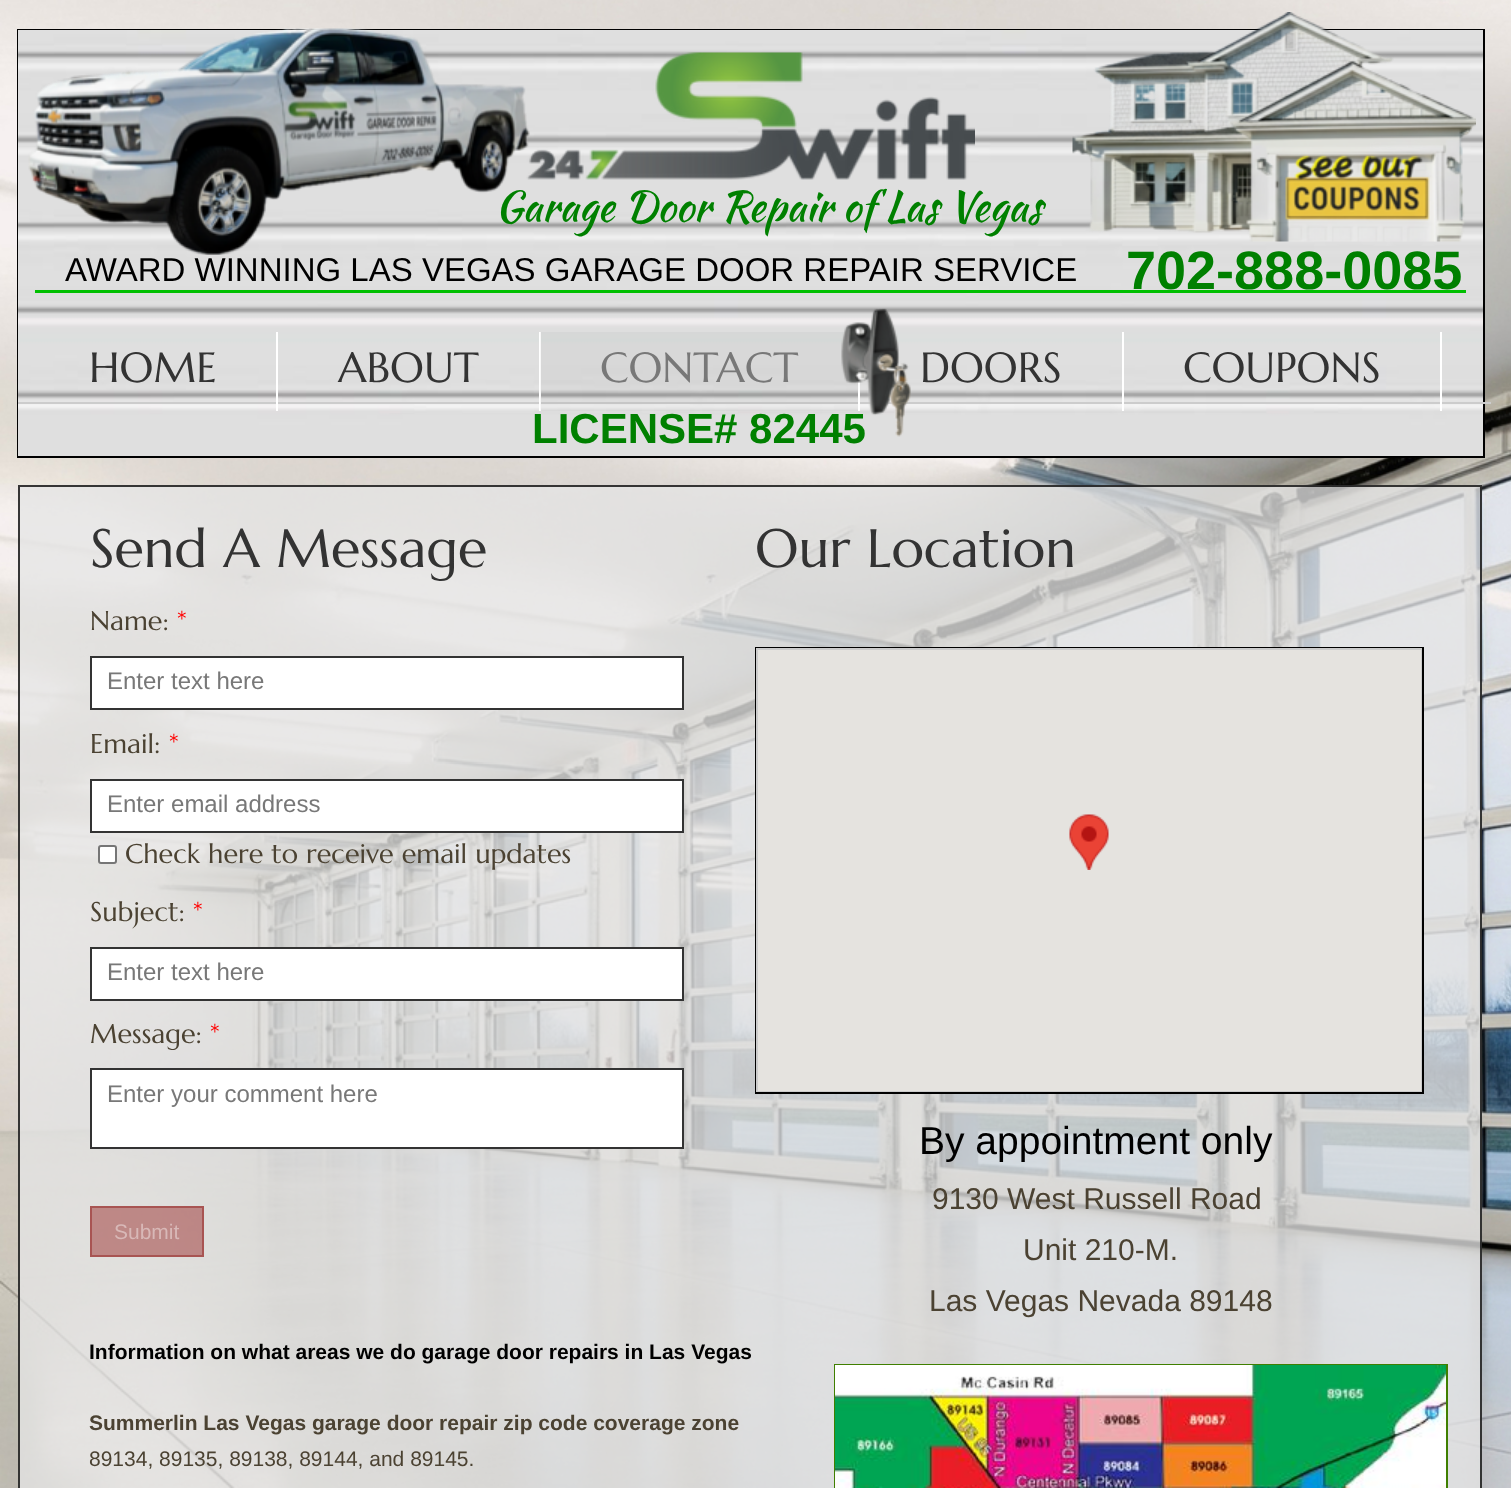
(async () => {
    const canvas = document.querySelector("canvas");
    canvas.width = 1511;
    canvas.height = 1488;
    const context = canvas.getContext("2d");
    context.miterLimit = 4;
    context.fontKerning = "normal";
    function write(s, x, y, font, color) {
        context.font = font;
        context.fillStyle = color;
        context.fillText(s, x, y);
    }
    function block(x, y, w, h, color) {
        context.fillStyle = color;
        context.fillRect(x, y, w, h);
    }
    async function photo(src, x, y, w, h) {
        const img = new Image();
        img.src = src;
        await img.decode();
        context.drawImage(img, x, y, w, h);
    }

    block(0, 0, 1511, 1488, "rgb(255, 255, 255)");
    await photo("media/1.png", 0, 0, 1511, 1488);
    context.strokeStyle = "rgb(0, 0, 0)";
    context.lineWidth = 2;
    context.strokeRect(18, 30, 1466, 427);
    await photo("media/4.png", 18, 30, 1465, 426);
    await photo("media/5.png", 526, 52, 449, 128);
    write("Garage Door Repair of Las Vegas", 495, 221, "42px Kaushan Script", "rgb(0, 128, 0)");
    await photo("media/2.png", 28, 28, 502, 227);
    await photo("media/3.png", 1072, 12, 404, 230);
    write("AWARD WINNING LAS VEGAS GARAGE DOOR REPAIR SERVICE", 65, 281, "33px Liberation Sans", "rgb(0, 0, 0)");
    write("702-888-0085", 1126, 289, "bold 54px Liberation Sans", "rgb(0, 128, 0)");
    block(35, 290, 1431, 3, "rgb(0, 191, 0)");
    block(18, 402, 1473, 2, "rgb(204, 204, 204)");
    block(539, 332, 2, 79, "rgb(255, 255, 255)");
    block(540, 332, 318, 79, "rgba(100, 100, 100, 0.05)");
    block(858, 380, 2, 31, "rgb(255, 255, 255)");
    write("LICENSE# 82445", 532, 443, "bold 42px Liberation Sans", "rgb(0, 128, 0)");
    await photo("media/6.png", 841, 308, 70, 129);
    block(276, 332, 2, 79, "rgb(255, 255, 255)");
    write("HOME", 89, 382, "42px Marcellus", "rgb(51, 51, 51)");
    write("ABOUT", 338, 382, "42px Marcellus", "rgb(51, 51, 51)");
    write("CONTACT", 600, 382, "42px Marcellus", "rgb(120, 120, 120)");
    block(1122, 332, 2, 79, "rgb(255, 255, 255)");
    write("DOORS", 920, 382, "42px Marcellus", "rgb(51, 51, 51)");
    block(1440, 332, 2, 79, "rgb(255, 255, 255)");
    write("COUPONS", 1183, 382, "42px Marcellus", "rgb(51, 51, 51)");
    block(18, 485, 1464, 1003, "rgba(229, 229, 229, 0.77)");
    context.strokeStyle = "rgba(0, 0, 0, 0.77)";
    context.strokeRect(19, 486, 1462, 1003);
    write("Send A Message", 90, 567, "54px Marcellus", "rgb(51, 51, 51)");
    write("Our Location", 755, 567, "54px Marcellus", "rgb(51, 51, 51)");
    write("Name:", 90, 630, "27px Marcellus", "rgb(75, 66, 50)");
    write("*", 177, 630, "27px Marcellus", "rgb(255, 0, 0)");
    context.fillStyle = "rgb(255, 255, 255)";
    context.beginPath();
    context.rect(91, 657, 592, 52);
    context.fill();
    context.strokeStyle = "rgb(51, 51, 51)";
    context.stroke();
    write("Enter text here", 107, 689, "24px Liberation Sans", "rgb(120, 120, 120)");
    context.strokeStyle = "rgb(0, 0, 0)";
    context.strokeRect(756, 648, 667, 445);
    context.strokeStyle = "rgb(204, 204, 204)";
    context.strokeRect(757, 649, 664, 442);
    block(758, 650, 663, 441, "rgb(229, 227, 223)");
    await photo("media/7.png", 1069, 814, 40, 56);
    write("Email:", 90, 753, "27px Marcellus", "rgb(75, 66, 50)");
    write("*", 169, 753, "27px Marcellus", "rgb(255, 0, 0)");
    context.fillStyle = "rgb(255, 255, 255)";
    context.beginPath();
    context.rect(91, 780, 592, 52);
    context.fill();
    context.strokeStyle = "rgb(51, 51, 51)";
    context.stroke();
    write("Enter email address", 107, 812, "24px Liberation Sans", "rgb(120, 120, 120)");
    context.fillStyle = "rgb(255, 255, 255)";
    context.beginPath();
    context.roundRect(99, 846, 17, 17, 2);
    context.fill();
    context.strokeStyle = "rgb(118, 118, 118)";
    context.stroke();
    write("Check here to receive email updates", 125, 863, "27px Marcellus", "rgb(75, 66, 50)");
    write("Subject:", 90, 921, "27px Marcellus", "rgb(75, 66, 50)");
    write("*", 193, 921, "27px Marcellus", "rgb(255, 0, 0)");
    context.fillStyle = "rgb(255, 255, 255)";
    context.beginPath();
    context.rect(91, 948, 592, 52);
    context.fill();
    context.strokeStyle = "rgb(51, 51, 51)";
    context.stroke();
    write("Enter text here", 107, 980, "24px Liberation Sans", "rgb(120, 120, 120)");
    write("Message:", 90, 1043, "27px Marcellus", "rgb(75, 66, 50)");
    write("*", 210, 1043, "27px Marcellus", "rgb(255, 0, 0)");
    context.fillStyle = "rgb(255, 255, 255)";
    context.beginPath();
    context.rect(91, 1069, 592, 79);
    context.fill();
    context.stroke();
    write("Enter your comment here", 107, 1102, "24px Liberation Sans", "rgb(120, 120, 120)");
    context.fillStyle = "rgba(137, 6, 5, 0.4)";
    context.beginPath();
    context.rect(91, 1207, 112, 49);
    context.fill();
    context.strokeStyle = "rgb(168, 84, 82)";
    context.stroke();
    write("Submit", 114, 1239, "21px Liberation Sans", "rgb(216, 184, 183)");
    write("By appointment only", 919, 1154, "39px Liberation Sans", "rgb(0, 0, 0)");
    write("9130 West Russell Road", 932, 1209, "30px Liberation Sans", "rgb(75, 66, 50)");
    write("Unit 210-M.", 1023, 1260, "30px Liberation Sans", "rgb(75, 66, 50)");
    write("Las Vegas Nevada 89148", 929, 1311, "30px Liberation Sans", "rgb(75, 66, 50)");
    write("Information on what areas we do garage door repairs in Las Vegas", 89, 1359, "bold 21px Liberation Sans", "rgb(0, 0, 0)");
    write("Summerlin Las Vegas garage door repair zip code coverage zone", 89, 1430, "bold 21px Liberation Sans", "rgb(75, 66, 50)");
    write("89134, 89135, 89138, 89144, and 89145.", 89, 1466, "21px Liberation Sans", "rgb(75, 66, 50)");
    context.strokeStyle = "rgb(63, 127, 0)";
    context.strokeRect(835, 1365, 612, 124);
    await photo("media/8.png", 835, 1365, 611, 123);
})();
